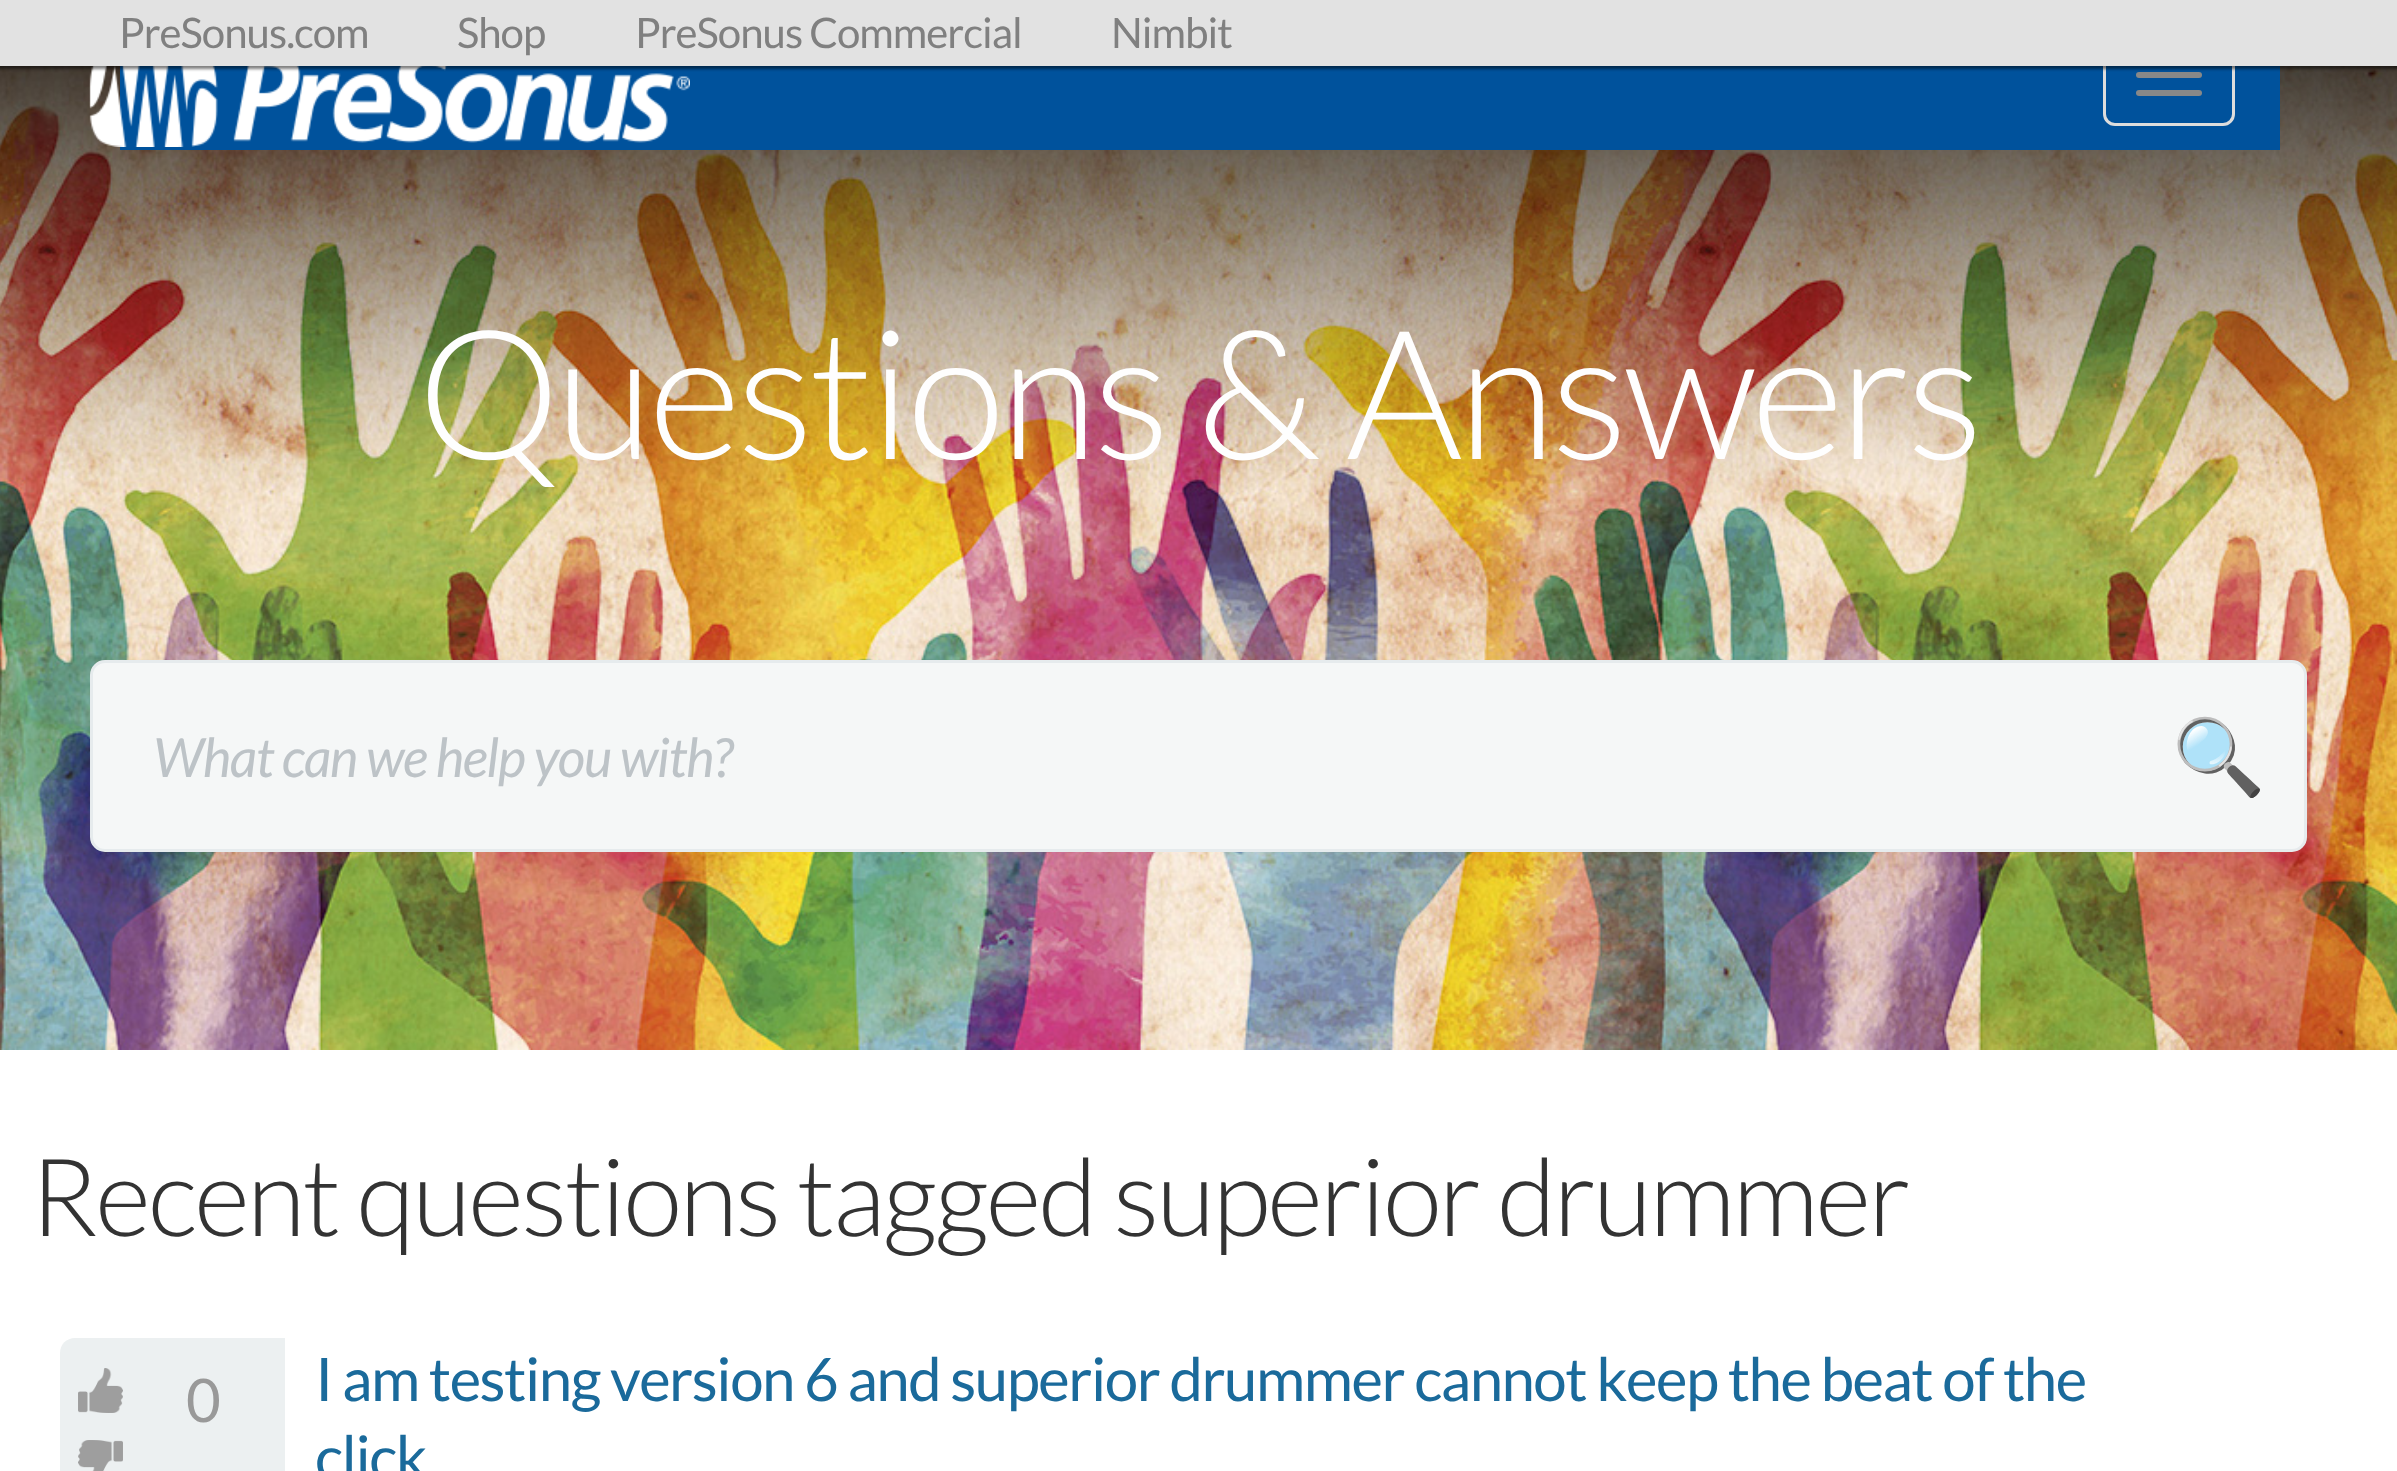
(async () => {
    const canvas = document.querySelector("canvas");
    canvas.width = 2397;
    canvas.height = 1471;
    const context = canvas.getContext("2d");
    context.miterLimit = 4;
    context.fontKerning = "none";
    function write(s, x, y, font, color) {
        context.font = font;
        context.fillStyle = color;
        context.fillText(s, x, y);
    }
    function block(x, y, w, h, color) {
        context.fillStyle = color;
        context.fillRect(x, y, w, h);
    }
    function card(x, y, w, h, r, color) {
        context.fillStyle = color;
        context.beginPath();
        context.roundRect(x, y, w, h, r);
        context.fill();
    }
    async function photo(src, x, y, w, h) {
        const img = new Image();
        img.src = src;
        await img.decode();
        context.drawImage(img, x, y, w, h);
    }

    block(0, 0, 2397, 1471, "rgb(255, 255, 255)");
    await photo("media/2.png", 0, 66, 2397, 984);
    block(120, 66, 2160, 84, "rgb(0, 82, 156)");
    await photo("media/1.png", 89, 66, 601, 81);
    context.beginPath();
    context.roundRect(2104.5, 25.5, 129, 99, 10.5);
    context.strokeStyle = "rgb(221, 221, 221)";
    context.lineWidth = 3;
    context.stroke();
    card(2136, 72, 66, 6, 3, "rgb(136, 136, 136)");
    context.fillStyle = "rgba(0, 0, 0, 0.5)";
    context.filter = "blur(1.5px)";
    context.beginPath();
    context.rect(-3, -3, 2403, 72);
    context.fill();
    context.filter = "none";
    block(0, 0, 2397, 66, "rgb(226, 226, 226)");
    context.letterSpacing = "-1px";
    write("PreSonus.com", 119, 48, "42px Lato", "rgb(128, 128, 128)");
    write("Shop", 457, 48, "42px Lato", "rgb(128, 128, 128)");
    write("PreSonus Commercial", 635, 48, "42px Lato", "rgb(128, 128, 128)");
    write("Nimbit", 1111, 48, "42px Lato", "rgb(128, 128, 128)");
    card(2136, 90, 66, 6, 3, "rgb(136, 136, 136)");
    context.letterSpacing = "-4.5px";
    write("Questions & Answers", 417, 459, "300 180px Lato", "rgb(254, 254, 254)");
    context.fillStyle = "rgb(245, 247, 247)";
    context.beginPath();
    context.roundRect(91.5, 661.5, 2214, 189, 13.5);
    context.fill();
    context.strokeStyle = "rgb(230, 235, 237)";
    context.stroke();
    context.letterSpacing = "-1.35px";
    write("What can we help you with?", 153, 777, "italic 54px Lato", "rgb(189, 195, 199)");
    context.letterSpacing = "-1px";
    write("🔍", 2172, 783, "75px Noto Color Emoji", "rgb(204, 204, 204)");
    context.letterSpacing = "-2.7px";
    write("Recent questions tagged superior drummer", 30, 1236, "300 108px Lato", "rgb(51, 51, 51)");
    context.fillStyle = "rgb(236, 240, 241)";
    context.beginPath();
    context.moveTo(75, 1338);
    context.lineTo(285, 1338);
    context.lineTo(285, 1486);
    context.lineTo(75, 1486);
    context.bezierCurveTo(66.5, 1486, 60, 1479.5, 60, 1471);
    context.lineTo(60, 1353);
    context.bezierCurveTo(60, 1344.5, 66.5, 1338, 75, 1338);
    context.closePath();
    context.fill();
    await photo("media/3.png", 78, 1368, 45, 45);
    await photo("media/4.png", 78, 1440, 45, 31);
    context.letterSpacing = "-1.5px";
    write("0", 186, 1422, "60px Lato", "rgb(153, 153, 153)");
    write("I am testing version 6 and superior drummer cannot keep the beat of the", 315, 1401, "60px Lato", "rgb(26, 106, 155)");
    write("click", 315, 1479, "60px Lato", "rgb(26, 106, 155)");
})();
